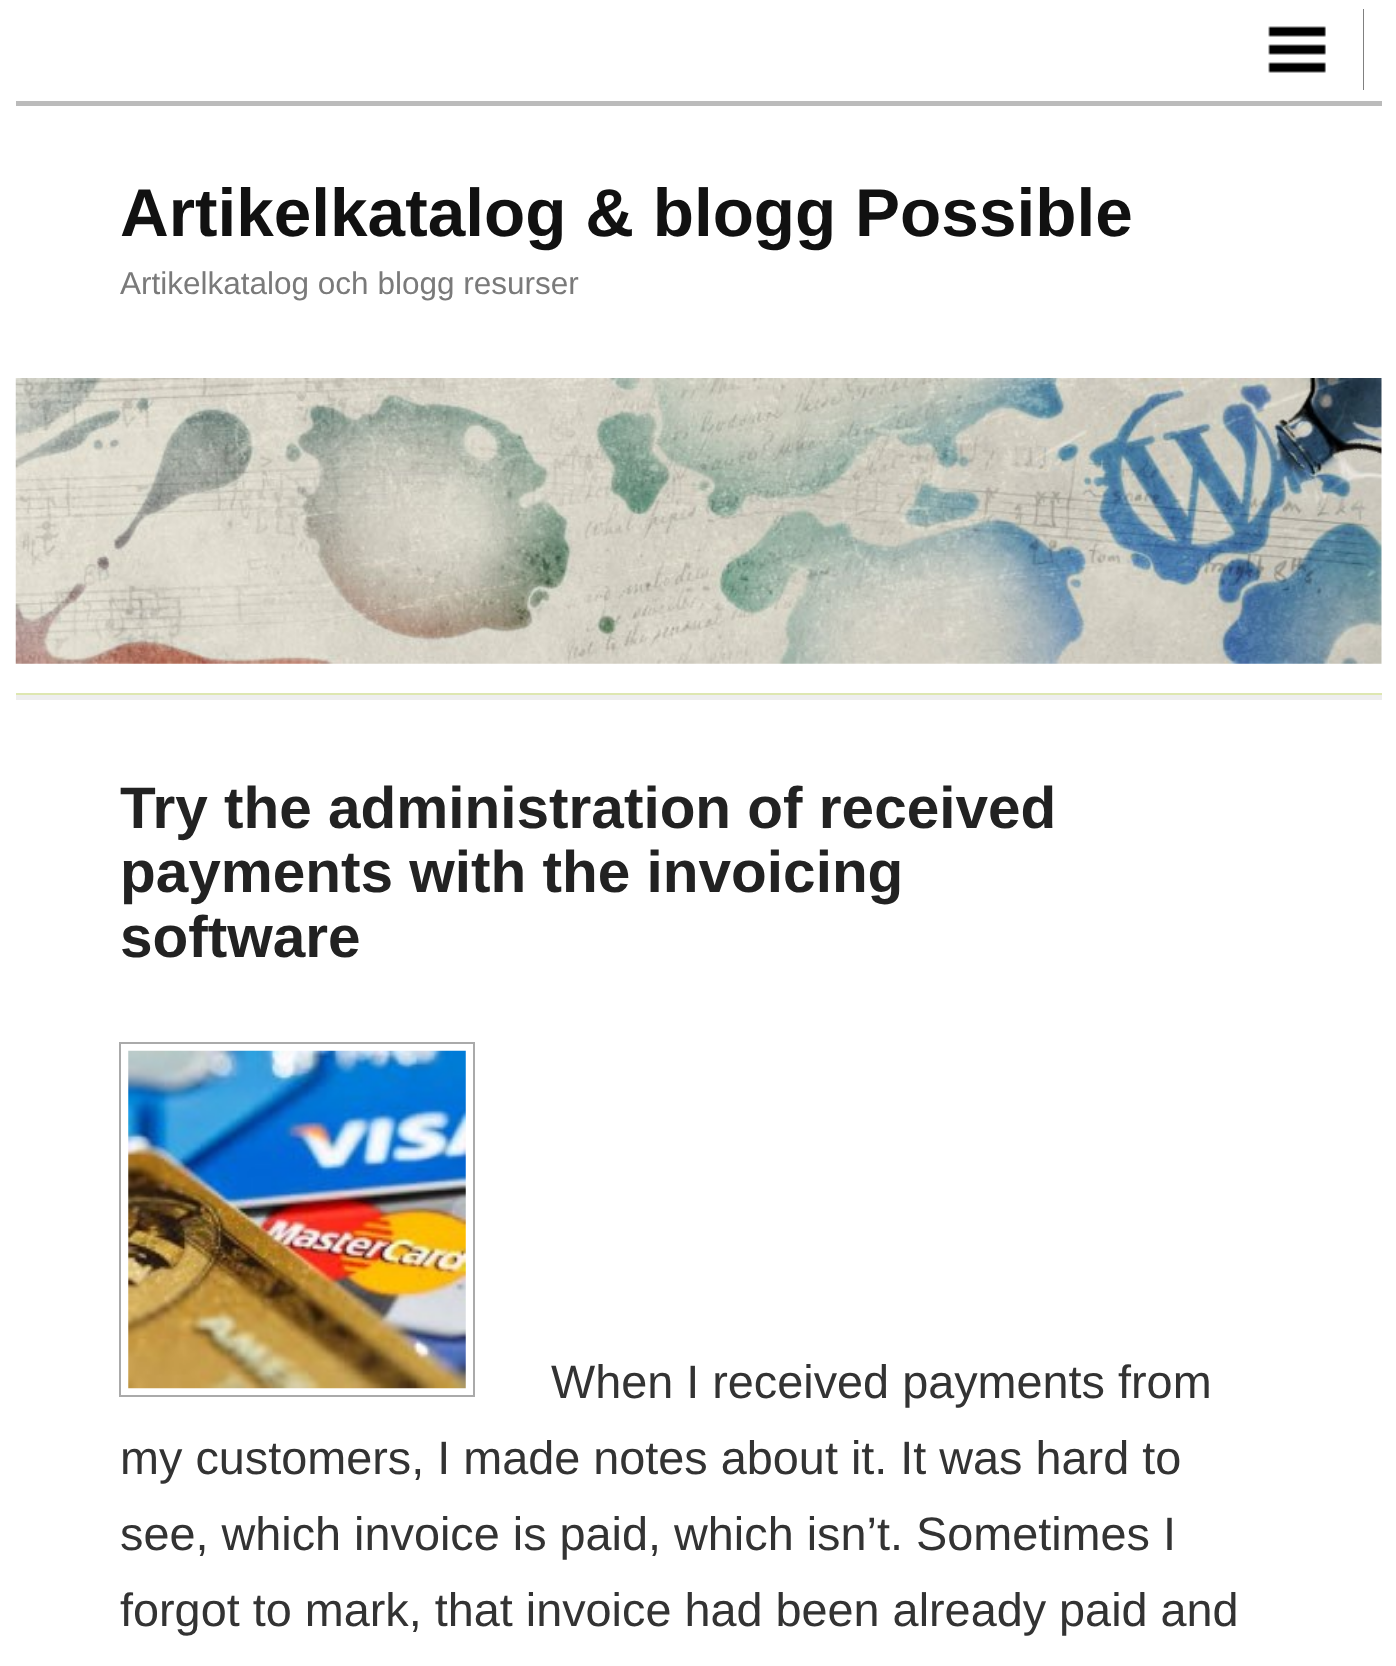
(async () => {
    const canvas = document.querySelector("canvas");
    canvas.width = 1396;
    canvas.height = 1666;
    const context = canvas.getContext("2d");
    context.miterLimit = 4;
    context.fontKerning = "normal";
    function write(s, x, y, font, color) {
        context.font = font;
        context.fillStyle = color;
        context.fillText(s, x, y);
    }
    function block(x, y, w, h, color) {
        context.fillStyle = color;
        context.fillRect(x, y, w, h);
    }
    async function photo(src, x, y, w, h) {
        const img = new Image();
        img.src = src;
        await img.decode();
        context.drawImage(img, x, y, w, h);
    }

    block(0, 0, 1396, 1666, "rgb(255, 255, 255)");
    block(1268, 9, 96, 81, "rgb(0, 0, 0)");
    await photo("media/1.png", 1229, 9, 135, 81);
    block(16, 101, 1366, 5, "rgb(187, 187, 187)");
    write("Artikelkatalog & blogg Possible", 120, 236, "bold 67.5px Liberation Sans", "rgb(17, 17, 17)");
    write("Artikelkatalog och blogg resurser", 120, 294, "31.5px Liberation Sans", "rgb(122, 122, 122)");
    await photo("media/2.png", 15, 378, 1367, 286);
    context.fillStyle = "rgb(222, 231, 177)";
    context.beginPath();
    context.moveTo(16, 693);
    context.lineTo(16, 695);
    context.lineTo(1382, 695);
    context.lineTo(1382, 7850);
    context.lineTo(1382, 693);
    context.closePath();
    context.fill();
    block(16, 695, 1366, 5, "rgb(238, 238, 238)");
    write("Try the administration of received", 120, 828, "bold 58.5px Liberation Sans", "rgb(34, 34, 34)");
    write("payments with the invoicing", 120, 892, "bold 58.5px Liberation Sans", "rgb(34, 34, 34)");
    write("software", 120, 957, "bold 58.5px Liberation Sans", "rgb(34, 34, 34)");
    context.strokeStyle = "rgb(170, 170, 170)";
    context.lineWidth = 2;
    context.strokeRect(120, 1043, 354, 353);
    await photo("media/3.png", 128, 1050, 338, 339);
    write("When I received payments from", 551, 1398, "46.8px Liberation Sans", "rgb(51, 51, 51)");
    write("my customers, I made notes about it. It was hard to", 120, 1474, "46.8px Liberation Sans", "rgb(51, 51, 51)");
    write("see, which invoice is paid, which isn’t. Sometimes I", 120, 1550, "46.8px Liberation Sans", "rgb(51, 51, 51)");
    write("forgot to mark, that invoice had been already paid and", 120, 1626, "46.8px Liberation Sans", "rgb(51, 51, 51)");
})();
